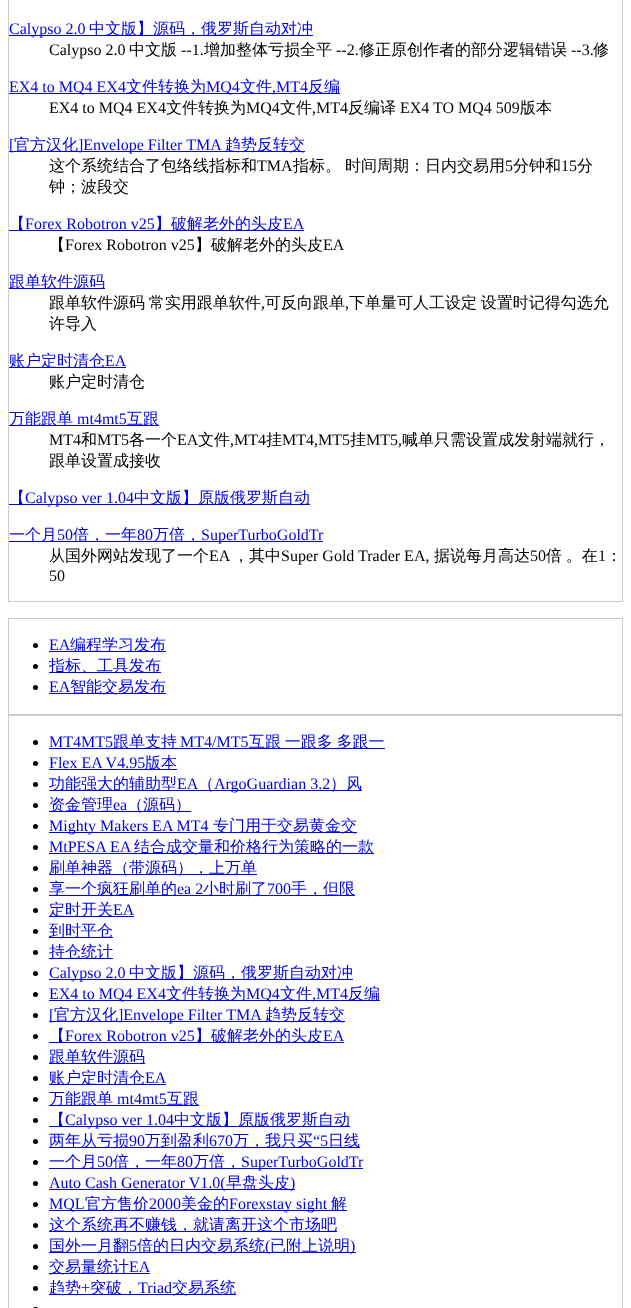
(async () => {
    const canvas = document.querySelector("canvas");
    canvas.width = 631;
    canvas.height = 1308;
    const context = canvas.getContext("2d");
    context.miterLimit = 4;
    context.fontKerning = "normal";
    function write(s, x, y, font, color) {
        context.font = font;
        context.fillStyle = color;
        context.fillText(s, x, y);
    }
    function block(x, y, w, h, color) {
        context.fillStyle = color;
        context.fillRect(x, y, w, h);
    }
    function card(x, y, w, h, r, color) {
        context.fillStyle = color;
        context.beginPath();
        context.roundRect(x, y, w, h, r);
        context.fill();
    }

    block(0, 0, 631, 1308, "rgb(255, 255, 255)");
    context.strokeStyle = "rgb(204, 204, 204)";
    context.strokeRect(8.5, -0.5, 614, 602);
    block(9, 35, 304, 1, "rgb(0, 0, 238)");
    write("Calypso 2.0", 9, 34, "16px Liberation Serif", "rgb(0, 0, 238)");
    write("中文版】源码，俄罗斯自动对冲", 89, 34, "500 16px WenQuanYi Zen Hei", "rgb(0, 0, 238)");
    write("Calypso 2.0", 49, 55, "16px Liberation Serif", "rgb(0, 0, 0)");
    write("中文版", 129, 55, "500 16px WenQuanYi Zen Hei", "rgb(0, 0, 0)");
    write("--1.", 181, 55, "16px Liberation Serif", "rgb(0, 0, 0)");
    write("增加整体亏损全平", 204, 55, "500 16px WenQuanYi Zen Hei", "rgb(0, 0, 0)");
    write("--2.", 336, 55, "16px Liberation Serif", "rgb(0, 0, 0)");
    write("修正原创作者的部分逻辑错误", 359, 55, "500 16px WenQuanYi Zen Hei", "rgb(0, 0, 0)");
    write("--3.", 571, 55, "16px Liberation Serif", "rgb(0, 0, 0)");
    write("修", 593, 55, "500 16px WenQuanYi Zen Hei", "rgb(0, 0, 0)");
    block(9, 93, 331, 1, "rgb(0, 0, 238)");
    write("EX4 to MQ4 EX4", 9, 92, "16px Liberation Serif", "rgb(0, 0, 238)");
    write("文件转换为", 126, 92, "500 16px WenQuanYi Zen Hei", "rgb(0, 0, 238)");
    write("MQ4", 206, 92, "16px Liberation Serif", "rgb(0, 0, 238)");
    write("文件", 240, 92, "500 16px WenQuanYi Zen Hei", "rgb(0, 0, 238)");
    write(",MT4", 272, 92, "16px Liberation Serif", "rgb(0, 0, 238)");
    write("反编", 308, 92, "500 16px WenQuanYi Zen Hei", "rgb(0, 0, 238)");
    write("EX4 to MQ4 EX4", 49, 113, "16px Liberation Serif", "rgb(0, 0, 0)");
    write("文件转换为", 166, 113, "500 16px WenQuanYi Zen Hei", "rgb(0, 0, 0)");
    write("MQ4", 246, 113, "16px Liberation Serif", "rgb(0, 0, 0)");
    write("文件", 280, 113, "500 16px WenQuanYi Zen Hei", "rgb(0, 0, 0)");
    write(",MT4", 312, 113, "16px Liberation Serif", "rgb(0, 0, 0)");
    write("反编译", 348, 113, "500 16px WenQuanYi Zen Hei", "rgb(0, 0, 0)");
    write("EX4 TO MQ4 509", 400, 113, "16px Liberation Serif", "rgb(0, 0, 0)");
    write("版本", 520, 113, "500 16px WenQuanYi Zen Hei", "rgb(0, 0, 0)");
    block(9, 151, 296, 1, "rgb(0, 0, 238)");
    write("[", 9, 150, "16px Liberation Serif", "rgb(0, 0, 238)");
    write("官方汉化", 14, 150, "500 16px WenQuanYi Zen Hei", "rgb(0, 0, 238)");
    write("]Envelope Filter TMA", 78, 150, "16px Liberation Serif", "rgb(0, 0, 238)");
    write("趋势反转交", 225, 150, "500 16px WenQuanYi Zen Hei", "rgb(0, 0, 238)");
    write("这个系统结合了包络线指标和", 49, 171, "500 16px WenQuanYi Zen Hei", "rgb(0, 0, 0)");
    write("TMA", 257, 171, "16px Liberation Serif", "rgb(0, 0, 0)");
    write("指标。", 293, 171, "500 16px WenQuanYi Zen Hei", "rgb(0, 0, 0)");
    write("时间周期：日内交易用", 345, 171, "500 16px WenQuanYi Zen Hei", "rgb(0, 0, 0)");
    write("5", 505, 171, "16px Liberation Serif", "rgb(0, 0, 0)");
    write("分钟和", 513, 171, "500 16px WenQuanYi Zen Hei", "rgb(0, 0, 0)");
    write("15", 561, 171, "16px Liberation Serif", "rgb(0, 0, 0)");
    write("分", 577, 171, "500 16px WenQuanYi Zen Hei", "rgb(0, 0, 0)");
    write("钟；波段交", 49, 192, "500 16px WenQuanYi Zen Hei", "rgb(0, 0, 0)");
    block(9, 230, 295, 1, "rgb(0, 0, 238)");
    write("【", 9, 229, "500 16px WenQuanYi Zen Hei", "rgb(0, 0, 238)");
    write("Forex Robotron v25", 25, 229, "16px Liberation Serif", "rgb(0, 0, 238)");
    write("】破解老外的头皮", 155, 229, "500 16px WenQuanYi Zen Hei", "rgb(0, 0, 238)");
    write("EA", 283, 229, "16px Liberation Serif", "rgb(0, 0, 238)");
    write("【", 49, 250, "500 16px WenQuanYi Zen Hei", "rgb(0, 0, 0)");
    write("Forex Robotron v25", 65, 250, "16px Liberation Serif", "rgb(0, 0, 0)");
    write("】破解老外的头皮", 195, 250, "500 16px WenQuanYi Zen Hei", "rgb(0, 0, 0)");
    write("EA", 323, 250, "16px Liberation Serif", "rgb(0, 0, 0)");
    block(9, 288, 96, 1, "rgb(0, 0, 238)");
    write("跟单软件源码", 9, 287, "500 16px WenQuanYi Zen Hei", "rgb(0, 0, 238)");
    context.wordSpacing = "-1px";
    write("跟单软件源码 常实用跟单软件", 49, 308, "500 16px WenQuanYi Zen Hei", "rgb(0, 0, 0)");
    context.wordSpacing = "0px";
    write(",", 261, 308, "16px Liberation Serif", "rgb(0, 0, 0)");
    write("可反向跟单", 265, 308, "500 16px WenQuanYi Zen Hei", "rgb(0, 0, 0)");
    write(",", 345, 308, "16px Liberation Serif", "rgb(0, 0, 0)");
    context.wordSpacing = "-1px";
    write("下单量可人工设定 设置时记得勾选允", 349, 308, "500 16px WenQuanYi Zen Hei", "rgb(0, 0, 0)");
    context.wordSpacing = "0px";
    write("许导入", 49, 329, "500 16px WenQuanYi Zen Hei", "rgb(0, 0, 0)");
    block(9, 367, 117, 1, "rgb(0, 0, 238)");
    write("账户定时清仓", 9, 366, "500 16px WenQuanYi Zen Hei", "rgb(0, 0, 238)");
    write("EA", 105, 366, "16px Liberation Serif", "rgb(0, 0, 238)");
    write("账户定时清仓", 49, 387, "500 16px WenQuanYi Zen Hei", "rgb(0, 0, 0)");
    block(9, 425, 150, 1, "rgb(0, 0, 238)");
    write("万能跟单", 9, 424, "500 16px WenQuanYi Zen Hei", "rgb(0, 0, 238)");
    write("mt4mt5", 77, 424, "16px Liberation Serif", "rgb(0, 0, 238)");
    write("互跟", 127, 424, "500 16px WenQuanYi Zen Hei", "rgb(0, 0, 238)");
    write("MT4", 49, 445, "16px Liberation Serif", "rgb(0, 0, 0)");
    write("和", 81, 445, "500 16px WenQuanYi Zen Hei", "rgb(0, 0, 0)");
    write("MT5", 97, 445, "16px Liberation Serif", "rgb(0, 0, 0)");
    write("各一个", 129, 445, "500 16px WenQuanYi Zen Hei", "rgb(0, 0, 0)");
    write("EA", 177, 445, "16px Liberation Serif", "rgb(0, 0, 0)");
    write("文件", 198, 445, "500 16px WenQuanYi Zen Hei", "rgb(0, 0, 0)");
    write(",MT4", 230, 445, "16px Liberation Serif", "rgb(0, 0, 0)");
    write("挂", 266, 445, "500 16px WenQuanYi Zen Hei", "rgb(0, 0, 0)");
    write("MT4,MT5", 282, 445, "16px Liberation Serif", "rgb(0, 0, 0)");
    write("挂", 350, 445, "500 16px WenQuanYi Zen Hei", "rgb(0, 0, 0)");
    write("MT5,", 366, 445, "16px Liberation Serif", "rgb(0, 0, 0)");
    write("喊单只需设置成发射端就行，", 402, 445, "500 16px WenQuanYi Zen Hei", "rgb(0, 0, 0)");
    write("跟单设置成接收", 49, 466, "500 16px WenQuanYi Zen Hei", "rgb(0, 0, 0)");
    block(9, 504, 301, 1, "rgb(0, 0, 238)");
    write("【", 9, 503, "500 16px WenQuanYi Zen Hei", "rgb(0, 0, 238)");
    write("Calypso ver 1.04", 25, 503, "16px Liberation Serif", "rgb(0, 0, 238)");
    write("中文版】原版俄罗斯自动", 134, 503, "500 16px WenQuanYi Zen Hei", "rgb(0, 0, 238)");
    block(9, 541, 314, 1, "rgb(0, 0, 238)");
    write("一个月", 9, 540, "500 16px WenQuanYi Zen Hei", "rgb(0, 0, 238)");
    write("50", 57, 540, "16px Liberation Serif", "rgb(0, 0, 238)");
    write("倍，一年", 73, 540, "500 16px WenQuanYi Zen Hei", "rgb(0, 0, 238)");
    write("80", 137, 540, "16px Liberation Serif", "rgb(0, 0, 238)");
    write("万倍，", 153, 540, "500 16px WenQuanYi Zen Hei", "rgb(0, 0, 238)");
    write("SuperTurboGoldTr", 201, 540, "16px Liberation Serif", "rgb(0, 0, 238)");
    write("从国外网站发现了一个", 49, 561, "500 16px WenQuanYi Zen Hei", "rgb(0, 0, 0)");
    write("EA", 209, 561, "16px Liberation Serif", "rgb(0, 0, 0)");
    write("，其中", 233, 561, "500 16px WenQuanYi Zen Hei", "rgb(0, 0, 0)");
    write("Super Gold Trader EA,", 281, 561, "16px Liberation Serif", "rgb(0, 0, 0)");
    write("据说每月高达", 434, 561, "500 16px WenQuanYi Zen Hei", "rgb(0, 0, 0)");
    write("50", 530, 561, "16px Liberation Serif", "rgb(0, 0, 0)");
    context.wordSpacing = "-1px";
    write("倍 。在", 546, 561, "500 16px WenQuanYi Zen Hei", "rgb(0, 0, 0)");
    context.wordSpacing = "0px";
    write("1", 598, 561, "16px Liberation Serif", "rgb(0, 0, 0)");
    write("：", 606, 561, "500 16px WenQuanYi Zen Hei", "rgb(0, 0, 0)");
    write("50", 49, 581, "16px Liberation Serif", "rgb(0, 0, 0)");
    context.strokeRect(8.5, 618.5, 614, 96);
    context.beginPath();
    context.arc(35.5, 645.5, 2.5, 0, Math.PI * 2);
    context.fill();
    write("EA", 49, 650, "16px Liberation Serif", "rgb(0, 0, 238)");
    block(49, 651, 117, 1, "rgb(0, 0, 238)");
    write("编程学习发布", 70, 650, "500 16px WenQuanYi Zen Hei", "rgb(0, 0, 238)");
    context.fillStyle = "rgb(0, 0, 0)";
    context.beginPath();
    context.arc(35.5, 666.5, 2.5, 0, Math.PI * 2);
    context.fill();
    block(49, 672, 112, 1, "rgb(0, 0, 238)");
    write("指标、工具发布", 49, 671, "500 16px WenQuanYi Zen Hei", "rgb(0, 0, 238)");
    context.fillStyle = "rgb(0, 0, 0)";
    context.beginPath();
    context.arc(35.5, 687.5, 2.5, 0, Math.PI * 2);
    context.fill();
    write("EA", 49, 692, "16px Liberation Serif", "rgb(0, 0, 238)");
    block(49, 693, 117, 1, "rgb(0, 0, 238)");
    write("智能交易发布", 70, 692, "500 16px WenQuanYi Zen Hei", "rgb(0, 0, 238)");
    context.strokeRect(8.5, 715.5, 614, 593);
    context.fillStyle = "rgb(0, 0, 0)";
    context.beginPath();
    context.arc(35.5, 742.5, 2.5, 0, Math.PI * 2);
    context.fill();
    write("MT4MT5", 49, 747, "16px Liberation Serif", "rgb(0, 0, 238)");
    block(49, 748, 336, 1, "rgb(0, 0, 238)");
    write("跟单支持", 113, 747, "500 16px WenQuanYi Zen Hei", "rgb(0, 0, 238)");
    write("MT4/MT5", 180, 747, "16px Liberation Serif", "rgb(0, 0, 238)");
    context.wordSpacing = "-1px";
    write("互跟 一跟多 多跟一", 249, 747, "500 16px WenQuanYi Zen Hei", "rgb(0, 0, 238)");
    context.fillStyle = "rgb(0, 0, 0)";
    context.beginPath();
    context.arc(35.5, 763.5, 2.5, 0, Math.PI * 2);
    context.fill();
    context.wordSpacing = "0px";
    write("Flex EA V4.95", 49, 768, "16px Liberation Serif", "rgb(0, 0, 238)");
    block(49, 769, 128, 1, "rgb(0, 0, 238)");
    write("版本", 145, 768, "500 16px WenQuanYi Zen Hei", "rgb(0, 0, 238)");
    context.fillStyle = "rgb(0, 0, 0)";
    context.beginPath();
    context.arc(35.5, 784.5, 2.5, 0, Math.PI * 2);
    context.fill();
    block(49, 790, 313, 1, "rgb(0, 0, 238)");
    write("功能强大的辅助型", 49, 789, "500 16px WenQuanYi Zen Hei", "rgb(0, 0, 238)");
    write("EA", 177, 789, "16px Liberation Serif", "rgb(0, 0, 238)");
    write("（", 198, 789, "500 16px WenQuanYi Zen Hei", "rgb(0, 0, 238)");
    write("ArgoGuardian 3.2", 214, 789, "16px Liberation Serif", "rgb(0, 0, 238)");
    write("）风", 330, 789, "500 16px WenQuanYi Zen Hei", "rgb(0, 0, 238)");
    context.fillStyle = "rgb(0, 0, 0)";
    context.beginPath();
    context.arc(35.5, 805.5, 2.5, 0, Math.PI * 2);
    context.fill();
    block(49, 811, 142, 1, "rgb(0, 0, 238)");
    write("资金管理", 49, 810, "500 16px WenQuanYi Zen Hei", "rgb(0, 0, 238)");
    write("ea", 113, 810, "16px Liberation Serif", "rgb(0, 0, 238)");
    write("（源码）", 127, 810, "500 16px WenQuanYi Zen Hei", "rgb(0, 0, 238)");
    context.fillStyle = "rgb(0, 0, 0)";
    context.beginPath();
    context.arc(35.5, 826.5, 2.5, 0, Math.PI * 2);
    context.fill();
    block(49, 832, 308, 1, "rgb(0, 0, 238)");
    write("Mighty Makers EA MT4", 49, 831, "16px Liberation Serif", "rgb(0, 0, 238)");
    write("专门用于交易黄金交", 213, 831, "500 16px WenQuanYi Zen Hei", "rgb(0, 0, 238)");
    context.fillStyle = "rgb(0, 0, 0)";
    context.beginPath();
    context.arc(35.5, 847.5, 2.5, 0, Math.PI * 2);
    context.fill();
    write("MtPESA EA", 49, 852, "16px Liberation Serif", "rgb(0, 0, 238)");
    block(49, 853, 325, 1, "rgb(0, 0, 238)");
    write("结合成交量和价格行为策略的一款", 134, 852, "500 16px WenQuanYi Zen Hei", "rgb(0, 0, 238)");
    context.fillStyle = "rgb(0, 0, 0)";
    context.beginPath();
    context.arc(35.5, 868.5, 2.5, 0, Math.PI * 2);
    context.fill();
    block(49, 874, 208, 1, "rgb(0, 0, 238)");
    write("刷单神器（带源码），上万单", 49, 873, "500 16px WenQuanYi Zen Hei", "rgb(0, 0, 238)");
    context.fillStyle = "rgb(0, 0, 0)";
    context.beginPath();
    context.arc(35.5, 889.5, 2.5, 0, Math.PI * 2);
    context.fill();
    block(49, 895, 306, 1, "rgb(0, 0, 238)");
    write("享一个疯狂刷单的", 49, 894, "500 16px WenQuanYi Zen Hei", "rgb(0, 0, 238)");
    write("ea 2", 177, 894, "16px Liberation Serif", "rgb(0, 0, 238)");
    write("小时刷了", 203, 894, "500 16px WenQuanYi Zen Hei", "rgb(0, 0, 238)");
    write("700", 267, 894, "16px Liberation Serif", "rgb(0, 0, 238)");
    write("手，但限", 291, 894, "500 16px WenQuanYi Zen Hei", "rgb(0, 0, 238)");
    context.fillStyle = "rgb(0, 0, 0)";
    context.beginPath();
    context.arc(35.5, 910.5, 2.5, 0, Math.PI * 2);
    context.fill();
    block(49, 916, 85, 1, "rgb(0, 0, 238)");
    write("定时开关", 49, 915, "500 16px WenQuanYi Zen Hei", "rgb(0, 0, 238)");
    write("EA", 113, 915, "16px Liberation Serif", "rgb(0, 0, 238)");
    context.fillStyle = "rgb(0, 0, 0)";
    context.beginPath();
    context.arc(35.5, 931.5, 2.5, 0, Math.PI * 2);
    context.fill();
    block(49, 937, 64, 1, "rgb(0, 0, 238)");
    write("到时平仓", 49, 936, "500 16px WenQuanYi Zen Hei", "rgb(0, 0, 238)");
    context.fillStyle = "rgb(0, 0, 0)";
    context.beginPath();
    context.arc(35.5, 952.5, 2.5, 0, Math.PI * 2);
    context.fill();
    block(49, 958, 64, 1, "rgb(0, 0, 238)");
    write("持仓统计", 49, 957, "500 16px WenQuanYi Zen Hei", "rgb(0, 0, 238)");
    context.fillStyle = "rgb(0, 0, 0)";
    context.beginPath();
    context.arc(35.5, 973.5, 2.5, 0, Math.PI * 2);
    context.fill();
    block(49, 979, 304, 1, "rgb(0, 0, 238)");
    write("Calypso 2.0", 49, 978, "16px Liberation Serif", "rgb(0, 0, 238)");
    write("中文版】源码，俄罗斯自动对冲", 129, 978, "500 16px WenQuanYi Zen Hei", "rgb(0, 0, 238)");
    context.fillStyle = "rgb(0, 0, 0)";
    context.beginPath();
    context.arc(35.5, 994.5, 2.5, 0, Math.PI * 2);
    context.fill();
    block(49, 1000, 331, 1, "rgb(0, 0, 238)");
    write("EX4 to MQ4 EX4", 49, 999, "16px Liberation Serif", "rgb(0, 0, 238)");
    write("文件转换为", 166, 999, "500 16px WenQuanYi Zen Hei", "rgb(0, 0, 238)");
    write("MQ4", 246, 999, "16px Liberation Serif", "rgb(0, 0, 238)");
    write("文件", 280, 999, "500 16px WenQuanYi Zen Hei", "rgb(0, 0, 238)");
    write(",MT4", 312, 999, "16px Liberation Serif", "rgb(0, 0, 238)");
    write("反编", 348, 999, "500 16px WenQuanYi Zen Hei", "rgb(0, 0, 238)");
    context.fillStyle = "rgb(0, 0, 0)";
    context.beginPath();
    context.arc(35.5, 1015.5, 2.5, 0, Math.PI * 2);
    context.fill();
    block(49, 1021, 296, 1, "rgb(0, 0, 238)");
    write("[", 49, 1020, "16px Liberation Serif", "rgb(0, 0, 238)");
    write("官方汉化", 54, 1020, "500 16px WenQuanYi Zen Hei", "rgb(0, 0, 238)");
    write("]Envelope Filter TMA", 118, 1020, "16px Liberation Serif", "rgb(0, 0, 238)");
    write("趋势反转交", 265, 1020, "500 16px WenQuanYi Zen Hei", "rgb(0, 0, 238)");
    context.fillStyle = "rgb(0, 0, 0)";
    context.beginPath();
    context.arc(35.5, 1036.5, 2.5, 0, Math.PI * 2);
    context.fill();
    block(49, 1042, 295, 1, "rgb(0, 0, 238)");
    write("【", 49, 1041, "500 16px WenQuanYi Zen Hei", "rgb(0, 0, 238)");
    write("Forex Robotron v25", 65, 1041, "16px Liberation Serif", "rgb(0, 0, 238)");
    write("】破解老外的头皮", 195, 1041, "500 16px WenQuanYi Zen Hei", "rgb(0, 0, 238)");
    write("EA", 323, 1041, "16px Liberation Serif", "rgb(0, 0, 238)");
    context.fillStyle = "rgb(0, 0, 0)";
    context.beginPath();
    context.arc(35.5, 1057.5, 2.5, 0, Math.PI * 2);
    context.fill();
    block(49, 1063, 96, 1, "rgb(0, 0, 238)");
    write("跟单软件源码", 49, 1062, "500 16px WenQuanYi Zen Hei", "rgb(0, 0, 238)");
    context.fillStyle = "rgb(0, 0, 0)";
    context.beginPath();
    context.arc(35.5, 1078.5, 2.5, 0, Math.PI * 2);
    context.fill();
    block(49, 1084, 117, 1, "rgb(0, 0, 238)");
    write("账户定时清仓", 49, 1083, "500 16px WenQuanYi Zen Hei", "rgb(0, 0, 238)");
    write("EA", 145, 1083, "16px Liberation Serif", "rgb(0, 0, 238)");
    context.fillStyle = "rgb(0, 0, 0)";
    context.beginPath();
    context.arc(35.5, 1099.5, 2.5, 0, Math.PI * 2);
    context.fill();
    block(49, 1105, 150, 1, "rgb(0, 0, 238)");
    write("万能跟单", 49, 1104, "500 16px WenQuanYi Zen Hei", "rgb(0, 0, 238)");
    write("mt4mt5", 117, 1104, "16px Liberation Serif", "rgb(0, 0, 238)");
    write("互跟", 167, 1104, "500 16px WenQuanYi Zen Hei", "rgb(0, 0, 238)");
    context.fillStyle = "rgb(0, 0, 0)";
    context.beginPath();
    context.arc(35.5, 1120.5, 2.5, 0, Math.PI * 2);
    context.fill();
    block(49, 1126, 301, 1, "rgb(0, 0, 238)");
    write("【", 49, 1125, "500 16px WenQuanYi Zen Hei", "rgb(0, 0, 238)");
    write("Calypso ver 1.04", 65, 1125, "16px Liberation Serif", "rgb(0, 0, 238)");
    write("中文版】原版俄罗斯自动", 174, 1125, "500 16px WenQuanYi Zen Hei", "rgb(0, 0, 238)");
    context.fillStyle = "rgb(0, 0, 0)";
    context.beginPath();
    context.arc(35.5, 1141.5, 2.5, 0, Math.PI * 2);
    context.fill();
    block(49, 1147, 311, 1, "rgb(0, 0, 238)");
    write("两年从亏损", 49, 1146, "500 16px WenQuanYi Zen Hei", "rgb(0, 0, 238)");
    write("90", 129, 1146, "16px Liberation Serif", "rgb(0, 0, 238)");
    write("万到盈利", 145, 1146, "500 16px WenQuanYi Zen Hei", "rgb(0, 0, 238)");
    write("670", 209, 1146, "16px Liberation Serif", "rgb(0, 0, 238)");
    write("万，我只买", 233, 1146, "500 16px WenQuanYi Zen Hei", "rgb(0, 0, 238)");
    write("“5", 313, 1146, "16px Liberation Serif", "rgb(0, 0, 238)");
    write("日线", 328, 1146, "500 16px WenQuanYi Zen Hei", "rgb(0, 0, 238)");
    context.fillStyle = "rgb(0, 0, 0)";
    context.beginPath();
    context.arc(35.5, 1162.5, 2.5, 0, Math.PI * 2);
    context.fill();
    block(49, 1168, 314, 1, "rgb(0, 0, 238)");
    write("一个月", 49, 1167, "500 16px WenQuanYi Zen Hei", "rgb(0, 0, 238)");
    write("50", 97, 1167, "16px Liberation Serif", "rgb(0, 0, 238)");
    write("倍，一年", 113, 1167, "500 16px WenQuanYi Zen Hei", "rgb(0, 0, 238)");
    write("80", 177, 1167, "16px Liberation Serif", "rgb(0, 0, 238)");
    write("万倍，", 193, 1167, "500 16px WenQuanYi Zen Hei", "rgb(0, 0, 238)");
    write("SuperTurboGoldTr", 241, 1167, "16px Liberation Serif", "rgb(0, 0, 238)");
    context.fillStyle = "rgb(0, 0, 0)";
    context.beginPath();
    context.arc(35.5, 1183.5, 2.5, 0, Math.PI * 2);
    context.fill();
    block(49, 1189, 246, 1, "rgb(0, 0, 238)");
    write("Auto Cash Generator V1.0(", 49, 1188, "16px Liberation Serif", "rgb(0, 0, 238)");
    write("早盘头皮", 226, 1188, "500 16px WenQuanYi Zen Hei", "rgb(0, 0, 238)");
    write(")", 290, 1188, "16px Liberation Serif", "rgb(0, 0, 238)");
    context.fillStyle = "rgb(0, 0, 0)";
    context.beginPath();
    context.arc(35.5, 1204.5, 2.5, 0, Math.PI * 2);
    context.fill();
    block(49, 1210, 298, 1, "rgb(0, 0, 238)");
    write("MQL", 49, 1209, "16px Liberation Serif", "rgb(0, 0, 238)");
    write("官方售价", 85, 1209, "500 16px WenQuanYi Zen Hei", "rgb(0, 0, 238)");
    write("2000", 149, 1209, "16px Liberation Serif", "rgb(0, 0, 238)");
    write("美金的", 181, 1209, "500 16px WenQuanYi Zen Hei", "rgb(0, 0, 238)");
    write("Forexstay sight", 229, 1209, "16px Liberation Serif", "rgb(0, 0, 238)");
    write("解", 331, 1209, "500 16px WenQuanYi Zen Hei", "rgb(0, 0, 238)");
    context.fillStyle = "rgb(0, 0, 0)";
    context.beginPath();
    context.arc(35.5, 1225.5, 2.5, 0, Math.PI * 2);
    context.fill();
    block(49, 1231, 288, 1, "rgb(0, 0, 238)");
    write("这个系统再不赚钱，就请离开这个市场吧", 49, 1230, "500 16px WenQuanYi Zen Hei", "rgb(0, 0, 238)");
    context.fillStyle = "rgb(0, 0, 0)";
    context.beginPath();
    context.arc(35.5, 1246.5, 2.5, 0, Math.PI * 2);
    context.fill();
    block(49, 1252, 307, 1, "rgb(0, 0, 238)");
    write("国外一月翻", 49, 1251, "500 16px WenQuanYi Zen Hei", "rgb(0, 0, 238)");
    write("5", 129, 1251, "16px Liberation Serif", "rgb(0, 0, 238)");
    write("倍的日内交易系统", 137, 1251, "500 16px WenQuanYi Zen Hei", "rgb(0, 0, 238)");
    write("(", 265, 1251, "16px Liberation Serif", "rgb(0, 0, 238)");
    write("已附上说明", 270, 1251, "500 16px WenQuanYi Zen Hei", "rgb(0, 0, 238)");
    write(")", 350, 1251, "16px Liberation Serif", "rgb(0, 0, 238)");
    context.fillStyle = "rgb(0, 0, 0)";
    context.beginPath();
    context.arc(35.5, 1267.5, 2.5, 0, Math.PI * 2);
    context.fill();
    block(49, 1273, 101, 1, "rgb(0, 0, 238)");
    write("交易量统计", 49, 1272, "500 16px WenQuanYi Zen Hei", "rgb(0, 0, 238)");
    write("EA", 129, 1272, "16px Liberation Serif", "rgb(0, 0, 238)");
    context.fillStyle = "rgb(0, 0, 0)";
    context.beginPath();
    context.arc(35.5, 1288.5, 2.5, 0, Math.PI * 2);
    context.fill();
    block(49, 1294, 187, 1, "rgb(0, 0, 238)");
    write("趋势", 49, 1293, "500 16px WenQuanYi Zen Hei", "rgb(0, 0, 238)");
    write("+", 81, 1293, "16px Liberation Serif", "rgb(0, 0, 238)");
    write("突破，", 90, 1293, "500 16px WenQuanYi Zen Hei", "rgb(0, 0, 238)");
    write("Triad", 138, 1293, "16px Liberation Serif", "rgb(0, 0, 238)");
    write("交易系统", 172, 1293, "500 16px WenQuanYi Zen Hei", "rgb(0, 0, 238)");
    card(33, 1307, 5, 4, 2.5, "rgb(0, 0, 0)");
})();
